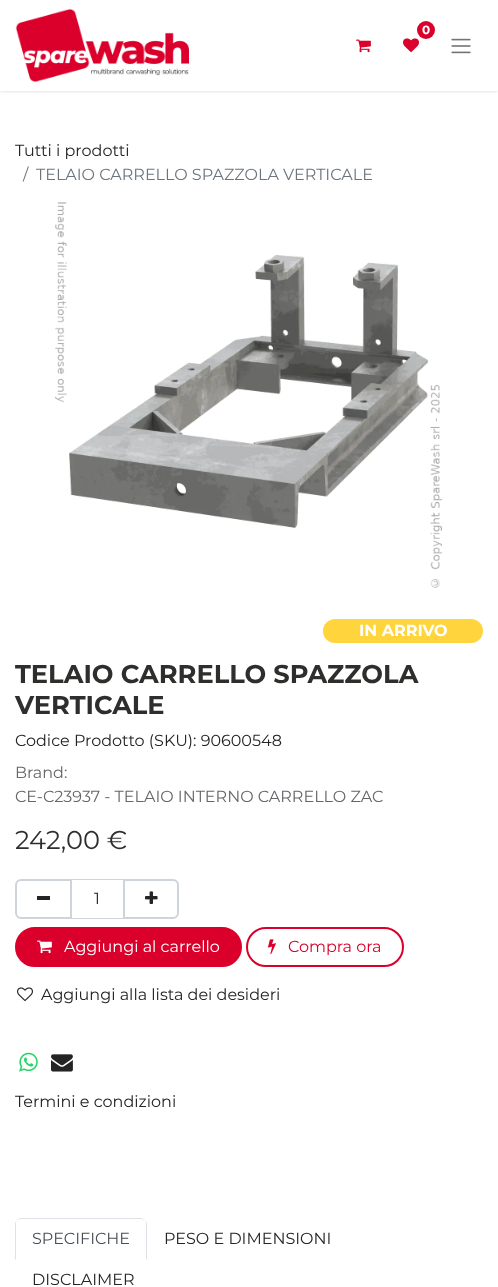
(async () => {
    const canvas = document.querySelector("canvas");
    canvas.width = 498;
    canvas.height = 1287;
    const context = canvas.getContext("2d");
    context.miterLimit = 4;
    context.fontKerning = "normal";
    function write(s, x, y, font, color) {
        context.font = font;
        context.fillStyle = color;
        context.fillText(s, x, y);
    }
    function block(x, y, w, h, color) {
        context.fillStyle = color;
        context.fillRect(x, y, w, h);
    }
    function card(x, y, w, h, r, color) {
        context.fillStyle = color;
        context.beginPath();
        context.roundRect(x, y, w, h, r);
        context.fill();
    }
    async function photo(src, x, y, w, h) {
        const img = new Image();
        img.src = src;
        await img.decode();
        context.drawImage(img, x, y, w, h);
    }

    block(0, 0, 498, 1287, "rgb(255, 255, 255)");
    context.save();
    context.beginPath();
    context.rect(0, 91, 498, 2);
    context.clip();
    context.fillStyle = "rgba(0, 0, 0, 0.1)";
    context.filter = "blur(1.5px)";
    context.beginPath();
    context.rect(0, 1, 498, 91);
    context.fill();
    context.filter = "none";
    context.restore();
    await photo("media/1.png", 15, 8, 174, 75);
    await photo("media/2.png", 403, 38, 16, 15);
    context.fillStyle = "rgb(218, 0, 43)";
    context.beginPath();
    context.arc(426, 30, 9, 0, Math.PI * 2);
    context.fill();
    write("0", 422, 34, "bold 12px Montserrat", "rgb(255, 255, 255)");
    await photo("media/3.png", 356, 39, 15, 14);
    await photo("media/4.png", 451, 38, 20, 16);
    write("Tutti i prodotti", 15, 156, "16px Montserrat", "rgb(36, 36, 36)");
    write("/", 23, 180, "16px Montserrat", "rgb(108, 117, 125)");
    write("TELAIO CARRELLO SPAZZOLA VERTICALE", 36, 180, "16px Montserrat", "rgb(108, 117, 125)");
    await photo("media/5.png", 55, 202, 387, 386);
    card(323, 619, 160, 24, 12, "rgb(255, 212, 60)");
    write("IN ARRIVO", 359, 636, "bold 16px Montserrat", "rgb(255, 255, 255)");
    write("TELAIO CARRELLO SPAZZOLA", 15, 683, "bold 25.7px Montserrat", "rgb(46, 46, 45)");
    write("VERTICALE", 15, 714, "bold 25.7px Montserrat", "rgb(46, 46, 45)");
    write("Codice Prodotto (SKU): 90600548", 15, 746, "16px Montserrat", "rgb(36, 36, 36)");
    write("Brand:", 15, 778, "16px Montserrat", "rgb(100, 102, 105)");
    write("CE-C23937 - TELAIO INTERNO CARRELLO ZAC", 15, 802, "16px Montserrat", "rgb(100, 102, 105)");
    write("242,00 €", 15, 849, "25.7px Montserrat", "rgb(46, 46, 45)");
    context.strokeStyle = "rgb(206, 212, 218)";
    context.strokeRect(71.5, 879.5, 52, 39);
    context.beginPath();
    context.roundRect(16, 880, 55, 38, [5, 0, 0, 5]);
    context.lineWidth = 2;
    context.stroke();
    block(37, 896, 13, 4, "rgb(36, 36, 36)");
    write("1", 94, 904, "16px Montserrat", "rgb(36, 36, 36)");
    context.beginPath();
    context.roundRect(124, 880, 54, 38, [0, 5, 5, 0]);
    context.stroke();
    await photo("media/6.png", 145, 891, 13, 13);
    context.fillStyle = "rgb(218, 0, 43)";
    context.beginPath();
    context.roundRect(16, 928, 225, 38, 19);
    context.fill();
    context.strokeStyle = "rgb(218, 0, 43)";
    context.stroke();
    await photo("media/7.png", 37, 940, 15, 14);
    write("Aggiungi al carrello", 64, 952, "16px Montserrat", "rgb(255, 255, 255)");
    context.beginPath();
    context.roundRect(247, 928, 156, 38, 19);
    context.stroke();
    await photo("media/8.png", 268, 939, 8, 16);
    write("Compra ora", 288, 952, "16px Montserrat", "rgb(218, 0, 43)");
    await photo("media/9.png", 17, 987, 16, 15);
    write("Aggiungi alla lista dei desideri", 41, 1000, "16px Montserrat", "rgb(36, 36, 36)");
    await photo("media/10.png", 19, 1052, 19, 20);
    await photo("media/11.png", 51, 1054, 22, 18);
    write("Termini e condizioni", 15, 1107, "16px Montserrat", "rgb(36, 36, 36)");
    context.fillStyle = "rgb(222, 226, 230)";
    context.beginPath();
    context.moveTo(21, 1218);
    context.bezierCurveTo(20, 1218, 18, 1219, 17, 1220);
    context.bezierCurveTo(18, 1220, 20, 1219, 21, 1219);
    context.lineTo(141, 1219);
    context.bezierCurveTo(142, 1219, 144, 1220, 145, 1220);
    context.bezierCurveTo(144, 1219, 142, 1218, 141, 1218);
    context.closePath();
    context.fill();
    context.beginPath();
    context.moveTo(147, 1260);
    context.lineTo(147, 1224);
    context.bezierCurveTo(147, 1222, 146, 1221, 145, 1220);
    context.bezierCurveTo(146, 1221, 146, 1222, 146, 1224);
    context.lineTo(146, 1259);
    context.closePath();
    context.fill();
    context.fillStyle = "rgb(255, 255, 255)";
    context.beginPath();
    context.moveTo(147, 1260);
    context.lineTo(146, 1259);
    context.lineTo(16, 1259);
    context.lineTo(15, 1260);
    context.closePath();
    context.fill();
    context.fillStyle = "rgb(222, 226, 230)";
    context.beginPath();
    context.moveTo(15, 1260);
    context.lineTo(16, 1259);
    context.lineTo(16, 1224);
    context.bezierCurveTo(16, 1222, 16, 1221, 17, 1220);
    context.bezierCurveTo(16, 1221, 15, 1222, 15, 1224);
    context.closePath();
    context.fill();
    write("SPECIFICHE", 32, 1244, "16px Montserrat", "rgb(73, 80, 87)");
    write("PESO E DIMENSIONI", 164, 1244, "16px Montserrat", "rgb(36, 36, 36)");
    write("DISCLAIMER", 32, 1285, "16px Montserrat", "rgb(36, 36, 36)");
})();
